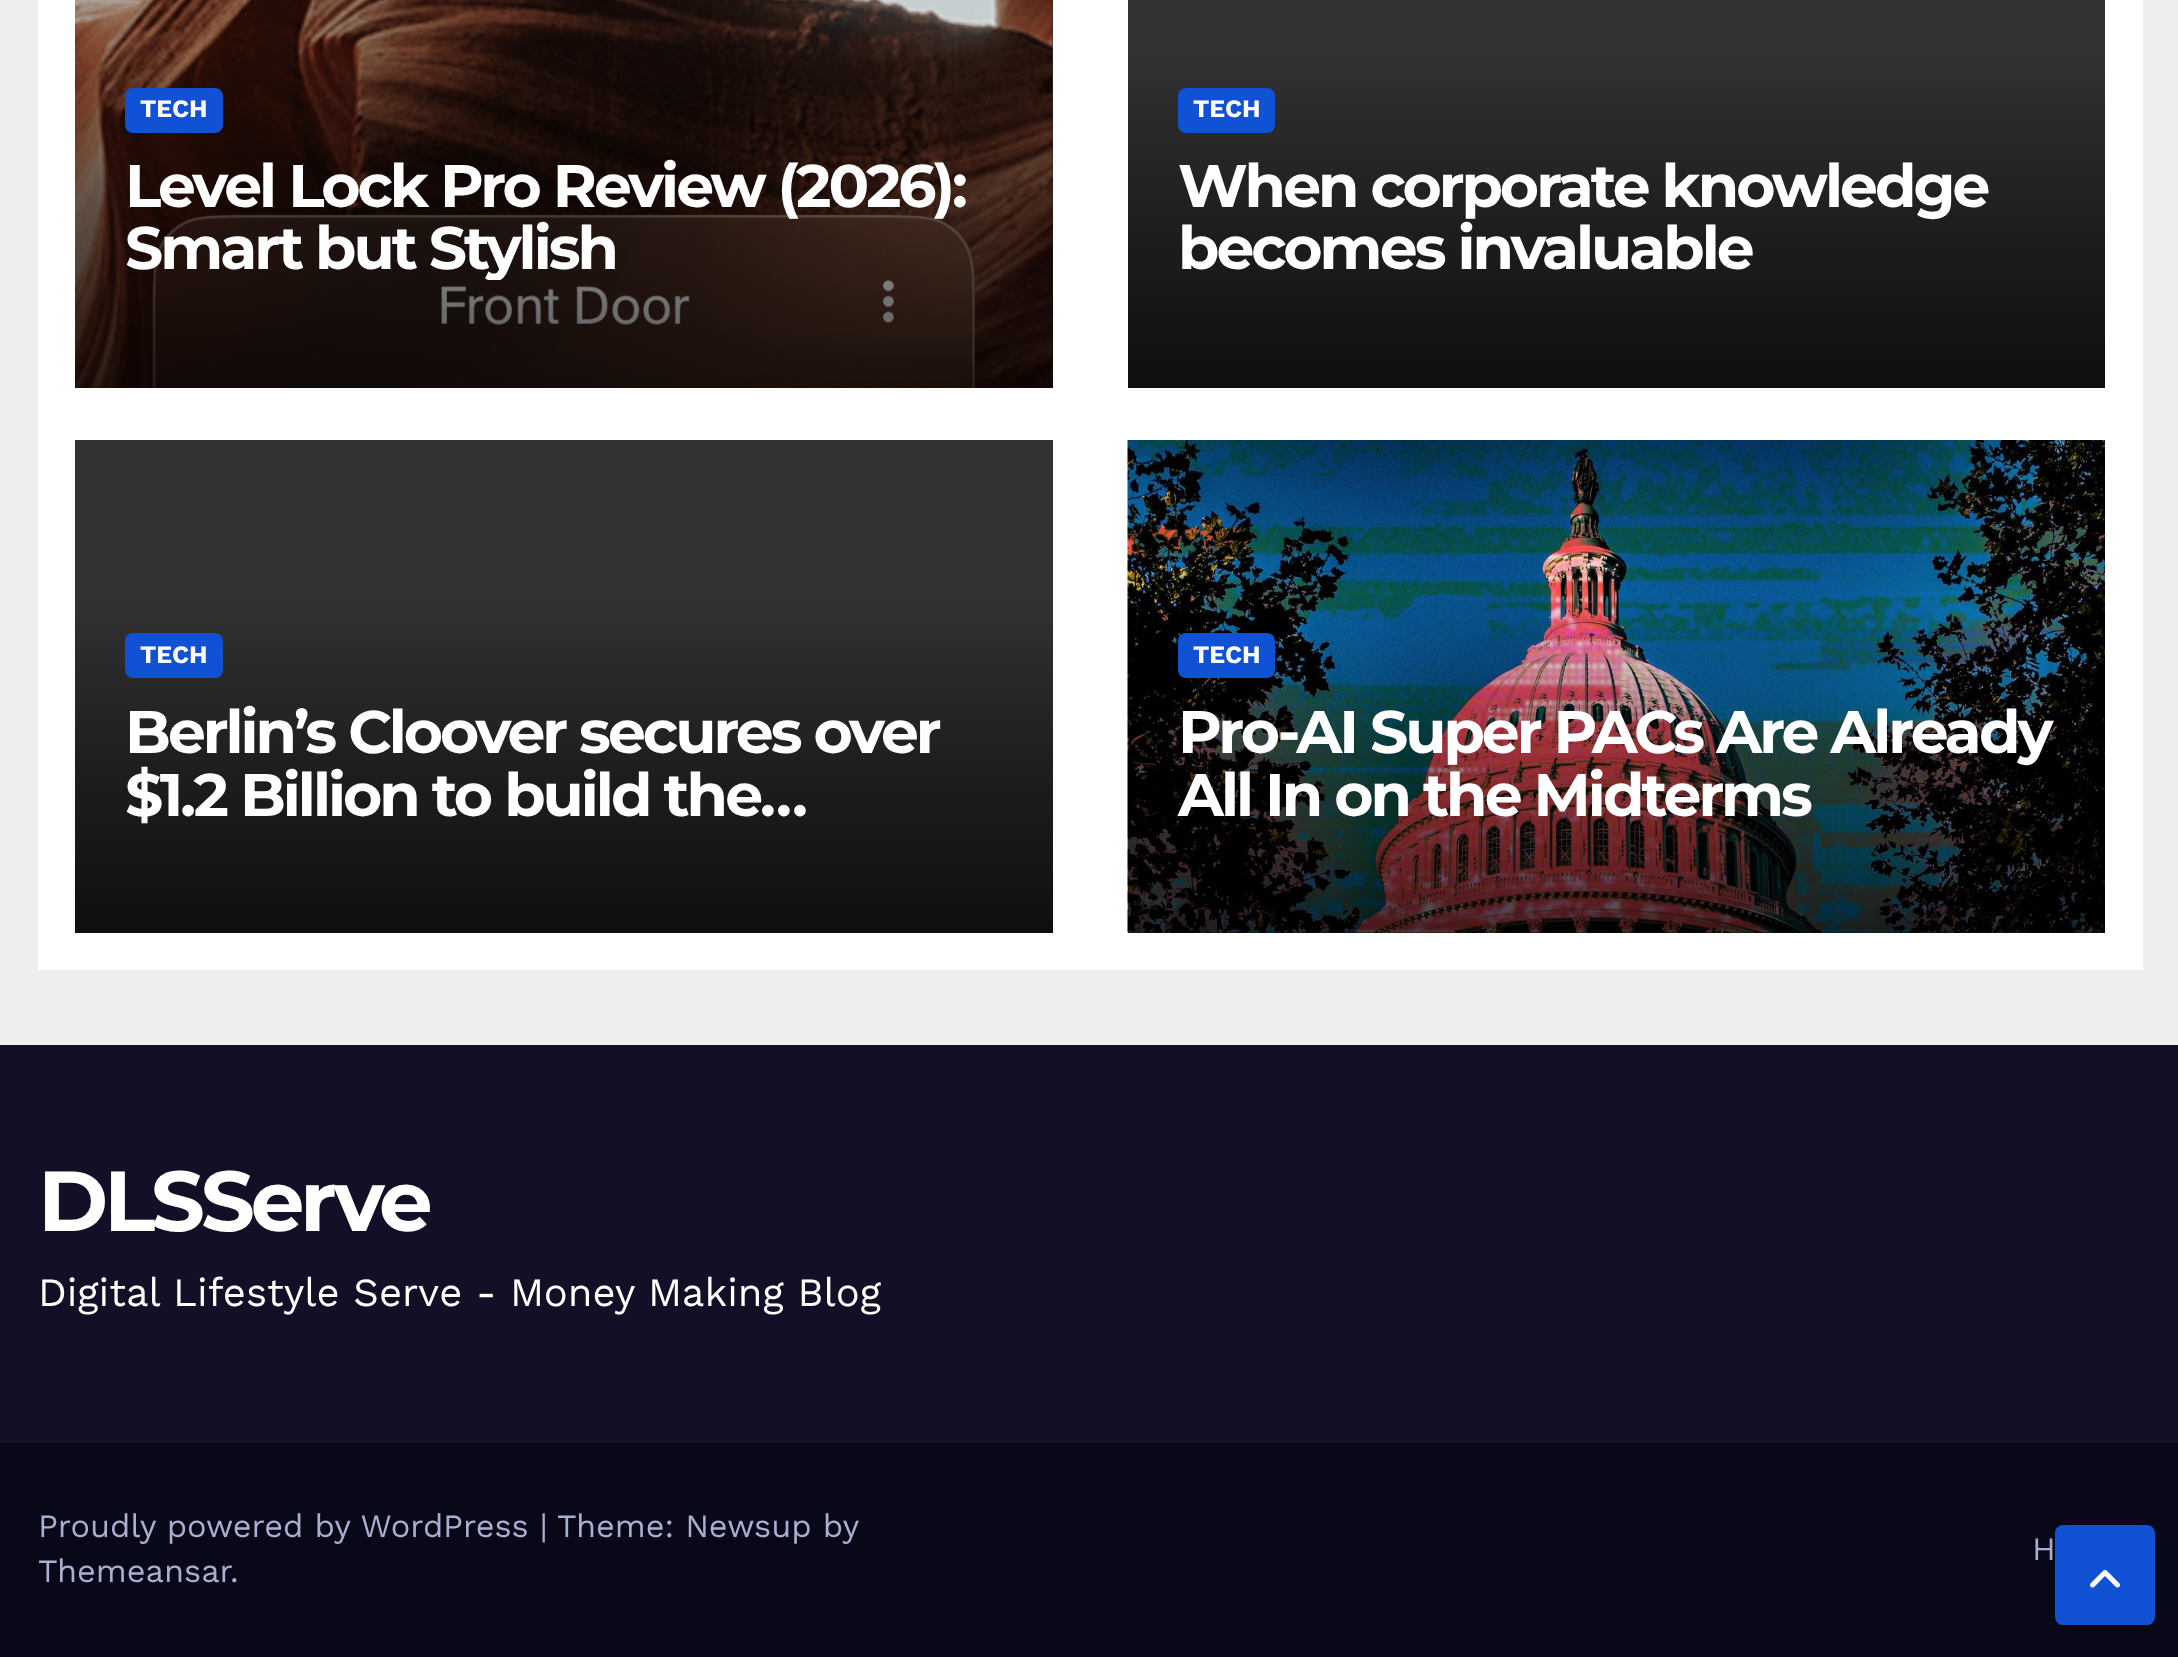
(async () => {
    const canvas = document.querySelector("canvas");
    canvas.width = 2178;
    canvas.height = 1657;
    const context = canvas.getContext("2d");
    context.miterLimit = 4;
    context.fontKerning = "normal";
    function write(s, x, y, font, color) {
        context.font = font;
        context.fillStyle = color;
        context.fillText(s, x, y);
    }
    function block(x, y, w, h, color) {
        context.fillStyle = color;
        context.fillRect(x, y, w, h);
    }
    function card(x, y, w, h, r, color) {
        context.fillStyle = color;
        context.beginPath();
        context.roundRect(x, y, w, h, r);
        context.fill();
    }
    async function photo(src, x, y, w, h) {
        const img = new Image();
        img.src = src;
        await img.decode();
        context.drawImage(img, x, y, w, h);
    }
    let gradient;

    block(0, 0, 2178, 1657, "rgb(238, 238, 238)");
    block(38, 0, 2105, 970, "rgb(255, 255, 255)");
    block(75, 0, 978, 388, "rgb(51, 51, 51)");
    await photo("media/1.png", 75, 0, 978, 388);
    gradient = context.createLinearGradient(564, 42, 564, 388);
    gradient.addColorStop(0, "rgba(0, 0, 0, 0)");
    gradient.addColorStop(0.5, "rgba(0, 0, 0, 0.4)");
    gradient.addColorStop(1, "rgba(0, 0, 0, 0.7)");
    context.fillStyle = gradient;
    context.fillRect(75, 51, 978, 337);
    card(125, 88, 98, 45, 8, "rgb(17, 81, 211)");
    write("TECH", 140, 117, "bold 25px Work Sans", "rgb(255, 255, 255)");
    context.letterSpacing = "-3px";
    write("Level Lock Pro Review (2026):", 125, 207, "bold 60px Montserrat", "rgb(255, 255, 255)");
    context.save();
    context.beginPath();
    context.rect(125, 155, 878, 125);
    context.clip();
    write("Smart but Stylish", 125, 269, "bold 60px Montserrat", "rgb(255, 255, 255)");
    context.restore();
    block(1128, 0, 977, 43, "rgb(51, 51, 51)");
    gradient = context.createLinearGradient(1616, 42, 1616, 388);
    gradient.addColorStop(0, "rgb(51, 51, 51)");
    gradient.addColorStop(0.5, "rgb(31, 31, 31)");
    gradient.addColorStop(1, "rgb(15, 15, 15)");
    context.fillStyle = gradient;
    context.fillRect(1128, 43, 977, 345);
    card(1178, 88, 97, 45, 8, "rgb(17, 81, 211)");
    context.letterSpacing = "0px";
    write("TECH", 1193, 117, "bold 25px Work Sans", "rgb(255, 255, 255)");
    context.letterSpacing = "-3px";
    write("When corporate knowledge", 1178, 207, "bold 60px Montserrat", "rgb(255, 255, 255)");
    write("becomes invaluable", 1178, 269, "bold 60px Montserrat", "rgb(255, 255, 255)");
    block(75, 440, 978, 148, "rgb(51, 51, 51)");
    gradient = context.createLinearGradient(564, 587, 564, 933);
    gradient.addColorStop(0, "rgb(51, 51, 51)");
    gradient.addColorStop(0.5, "rgb(31, 31, 31)");
    gradient.addColorStop(1, "rgb(15, 15, 15)");
    context.fillStyle = gradient;
    context.fillRect(75, 588, 978, 345);
    card(125, 633, 98, 45, 8, "rgb(17, 81, 211)");
    context.letterSpacing = "0px";
    write("TECH", 140, 663, "bold 25px Work Sans", "rgb(255, 255, 255)");
    context.letterSpacing = "-3px";
    write("Berlin’s Cloover secures over", 125, 753, "bold 60px Montserrat", "rgb(255, 255, 255)");
    write("$1.2 Billion to build the…", 125, 816, "bold 60px Montserrat", "rgb(255, 255, 255)");
    block(1128, 932, 977, 1, "rgb(51, 51, 51)");
    await photo("media/2.png", 1127, 440, 978, 493);
    gradient = context.createLinearGradient(1616, 587, 1616, 933);
    gradient.addColorStop(0, "rgba(0, 0, 0, 0)");
    gradient.addColorStop(0.5, "rgba(0, 0, 0, 0.4)");
    gradient.addColorStop(1, "rgba(0, 0, 0, 0.7)");
    context.fillStyle = gradient;
    context.fillRect(1128, 596, 977, 337);
    card(1178, 633, 97, 45, 8, "rgb(17, 81, 211)");
    context.letterSpacing = "0px";
    write("TECH", 1193, 663, "bold 25px Work Sans", "rgb(255, 255, 255)");
    context.letterSpacing = "-3px";
    write("Pro-AI Super PACs Are Already", 1178, 753, "bold 60px Montserrat", "rgb(255, 255, 255)");
    write("All In on the Midterms", 1178, 816, "bold 60px Montserrat", "rgb(255, 255, 255)");
    block(0, 1045, 2178, 398, "rgb(18, 16, 38)");
    context.letterSpacing = "-4.25px";
    write("DLSServe", 38, 1231, "bold 85px Montserrat", "rgb(255, 255, 255)");
    context.letterSpacing = "0px";
    write("Digital Lifestyle Serve - Money Making Blog", 38, 1306, "40px Work Sans", "rgb(255, 255, 255)");
    block(0, 1443, 2178, 214, "rgb(9, 8, 24)");
    write("Proudly powered by WordPress |", 38, 1537, "32.5px Work Sans", "rgb(170, 174, 209)");
    write("Theme: Newsup by", 557, 1537, "32.5px Work Sans", "rgb(170, 174, 209)");
    write("Themeansar", 38, 1582, "32.5px Work Sans", "rgb(170, 174, 209)");
    write(".", 230, 1582, "32.5px Work Sans", "rgb(170, 174, 209)");
    write("H", 2032, 1560, "32.5px Work Sans", "rgb(170, 174, 209)");
    context.fillStyle = "rgb(17, 81, 211)";
    context.beginPath();
    context.roundRect(2057.5, 1527.5, 95, 95, 5.5);
    context.fill();
    context.strokeStyle = "rgb(17, 81, 211)";
    context.lineWidth = 5;
    context.stroke();
    await photo("media/3.png", 2090, 1570, 30, 18);
})();
